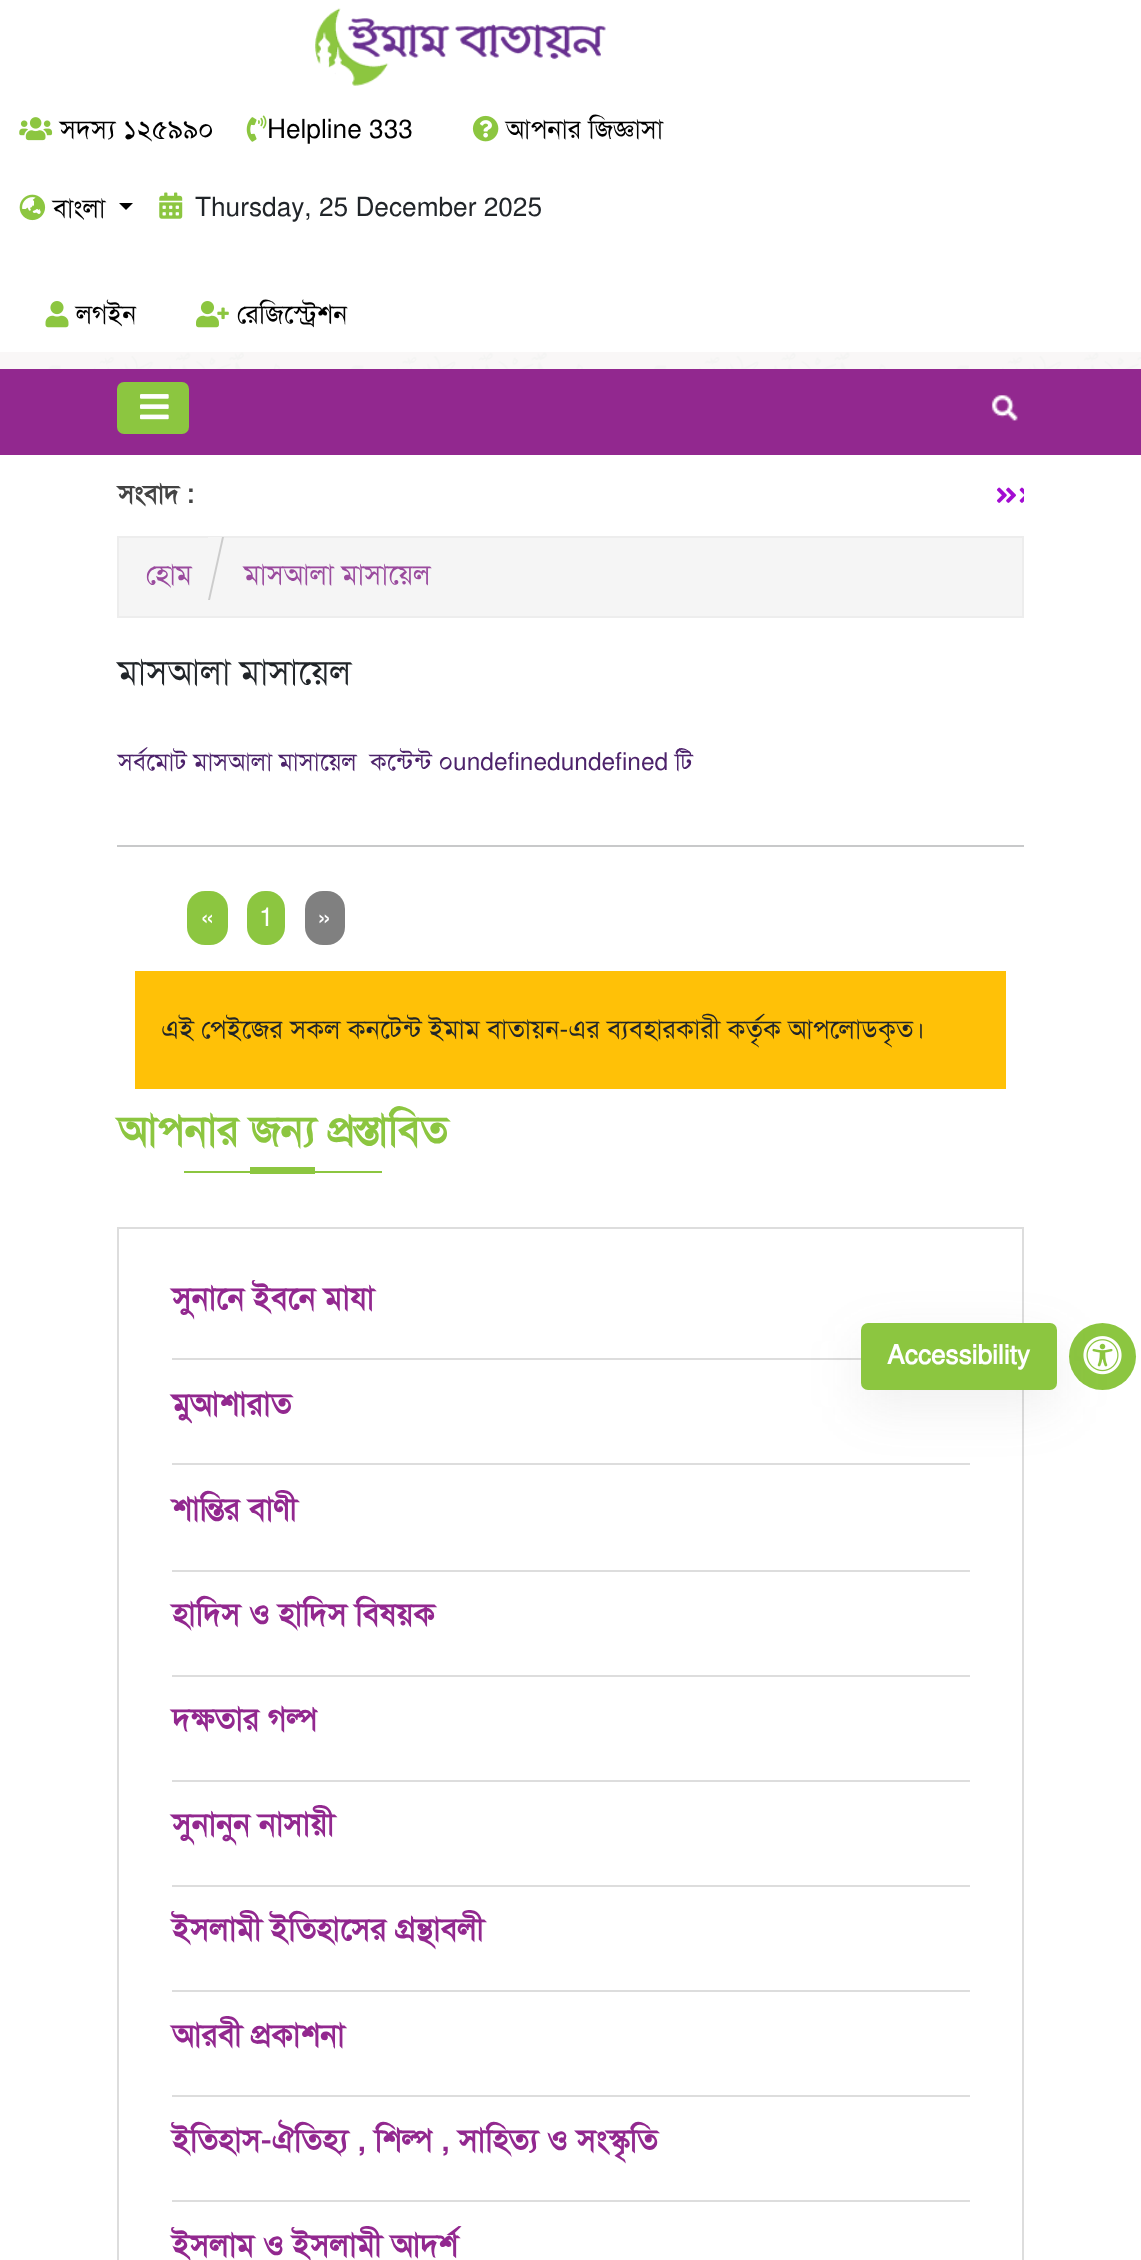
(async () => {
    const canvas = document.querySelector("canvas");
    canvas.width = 1141;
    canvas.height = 2260;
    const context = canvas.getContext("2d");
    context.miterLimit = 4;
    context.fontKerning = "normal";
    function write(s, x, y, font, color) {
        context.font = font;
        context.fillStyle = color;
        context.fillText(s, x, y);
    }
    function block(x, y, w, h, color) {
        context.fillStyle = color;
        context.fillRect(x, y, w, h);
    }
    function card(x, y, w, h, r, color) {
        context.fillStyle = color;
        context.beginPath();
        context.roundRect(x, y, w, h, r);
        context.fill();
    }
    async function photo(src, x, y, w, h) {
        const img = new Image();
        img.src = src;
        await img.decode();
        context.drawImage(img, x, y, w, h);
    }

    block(0, 0, 1141, 2260, "rgb(255, 255, 255)");
    await photo("media/1.png", 315, 8, 291, 78);
    await photo("media/2.png", 19, 117, 34, 24);
    write("সদস্য ১২৫৯৯০", 60, 138, "26.25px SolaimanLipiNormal", "rgb(0, 0, 0)");
    await photo("media/3.png", 246, 115, 21, 27);
    write("Helpline 333", 267, 138, "26.25px SolaimanLipiNormal", "rgb(0, 0, 0)");
    await photo("media/4.png", 472, 115, 27, 27);
    write("আপনার জিজ্ঞাসা", 506, 138, "26.25px SolaimanLipiNormal", "rgb(0, 0, 0)");
    await photo("media/5.png", 19, 194, 27, 27);
    write("বাংলা", 53, 217, "26.25px SolaimanLipiNormal", "rgb(0, 0, 0)");
    context.beginPath();
    context.moveTo(119, 203);
    context.lineTo(133, 203);
    context.lineTo(126, 210);
    context.closePath();
    context.fill();
    await photo("media/6.png", 159, 192, 24, 27);
    write("Thursday, 25 December 2025", 195, 216, "26.25px SolaimanLipiNormal", "rgb(33, 37, 41)");
    await photo("media/7.png", 45, 301, 24, 27);
    write("লগইন", 76, 323, "26.25px SolaimanLipiNormal", "rgb(0, 0, 0)");
    await photo("media/8.png", 196, 301, 33, 27);
    write("রেজিস্ট্রেশন", 237, 323, "26.25px SolaimanLipiNormal", "rgb(0, 0, 0)");
    await photo("media/9.png", 0, 352, 1141, 17);
    block(0, 369, 1141, 86, "rgb(146, 40, 143)");
    context.fillStyle = "rgb(140, 198, 64)";
    context.beginPath();
    context.roundRect(118, 383, 70, 50, 6);
    context.fill();
    context.strokeStyle = "rgb(140, 198, 64)";
    context.lineWidth = 2;
    context.stroke();
    await photo("media/10.png", 140, 394, 29, 26);
    await photo("media/11.png", 991, 395, 27, 26);
    write("সংবাদ :", 118, 503, "bold 26.25px SolaimanLipiNormal", "rgb(68, 68, 68)");
    await photo("media/12.png", 997, 487, 19, 16);
    await photo("media/13.png", 1019, 487, 5, 16);
    context.fillStyle = "rgb(245, 245, 245)";
    context.beginPath();
    context.rect(118, 537, 905, 80);
    context.fill();
    context.strokeStyle = "rgb(237, 237, 237)";
    context.stroke();
    context.fillStyle = "rgb(204, 204, 204)";
    context.beginPath();
    context.moveTo(208, 537);
    context.lineTo(224, 537);
    context.lineTo(210, 600);
    context.lineTo(208, 600);
    context.closePath();
    context.fill();
    write("হোম", 146, 584, "28px SolaimanLipiNormal", "rgb(154, 75, 158)");
    context.fillStyle = "rgb(245, 245, 245)";
    context.beginPath();
    context.moveTo(208, 537);
    context.lineTo(222, 537);
    context.lineTo(208, 600);
    context.closePath();
    context.fill();
    write("মাসআলা মাসায়েল", 244, 584, "28px SolaimanLipiNormal", "rgb(154, 75, 158)");
    write("মাসআলা মাসায়েল", 118, 684, "35px SolaimanLipiNormal", "rgb(33, 37, 41)");
    write("সর্বমোট মাসআলা মাসায়েল", 118, 770, "24.5px SolaimanLipiNormal", "rgb(77, 35, 107)");
    write("কন্টেন্ট ০undefinedundefined টি", 370, 770, "24.5px SolaimanLipiNormal", "rgb(77, 35, 107)");
    block(117, 845, 907, 2, "rgb(200, 201, 202)");
    card(187, 891, 41, 54, 18, "rgb(140, 198, 64)");
    write("«", 200, 926, "26.25px SolaimanLipiNormal", "rgb(255, 255, 255)");
    card(247, 891, 38, 54, 18, "rgb(140, 198, 64)");
    write("1", 259, 926, "26.25px SolaimanLipiNormal", "rgb(255, 255, 255)");
    card(305, 891, 40, 54, 18, "rgb(128, 128, 128)");
    write("»", 317, 926, "26.25px SolaimanLipiNormal", "rgb(255, 255, 255)");
    block(135, 971, 871, 118, "rgb(255, 193, 7)");
    write("এই পেইজের সকল কনটেন্ট ইমাম বাতায়ন-এর ব্যবহারকারী কর্তৃক আপলোডকৃত।", 161, 1038, "26.25px SolaimanLipiNormal", "rgb(33, 37, 41)");
    write("আপনার জন্য প্রস্তাবিত", 118, 1145, "bold 42px SolaimanLipiNormal", "rgb(140, 198, 64)");
    block(184, 1171, 198, 2, "rgb(140, 198, 64)");
    block(250, 1167, 65, 7, "rgb(140, 198, 64)");
    context.strokeStyle = "rgb(221, 221, 221)";
    context.strokeRect(118, 1228, 905, 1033);
    block(172, 1358, 689, 2, "rgb(221, 221, 221)");
    write("সুনানে ইবনে মাযা", 172, 1309, "bold 31.5px SolaimanLipiNormal", "rgb(146, 40, 143)");
    block(172, 1463, 798, 2, "rgb(221, 221, 221)");
    write("মুআশারাত", 172, 1415, "bold 31.5px SolaimanLipiNormal", "rgb(146, 40, 143)");
    block(172, 1570, 798, 2, "rgb(221, 221, 221)");
    write("শান্তির বাণী", 172, 1520, "bold 31.5px SolaimanLipiNormal", "rgb(146, 40, 143)");
    block(172, 1675, 798, 2, "rgb(221, 221, 221)");
    write("হাদিস ও হাদিস বিষয়ক", 172, 1625, "bold 31.5px SolaimanLipiNormal", "rgb(146, 40, 143)");
    block(172, 1780, 798, 2, "rgb(221, 221, 221)");
    write("দক্ষতার গল্প", 172, 1730, "bold 31.5px SolaimanLipiNormal", "rgb(146, 40, 143)");
    block(172, 1885, 798, 2, "rgb(221, 221, 221)");
    write("সুনানুন নাসায়ী", 172, 1835, "bold 31.5px SolaimanLipiNormal", "rgb(146, 40, 143)");
    block(172, 1990, 798, 2, "rgb(221, 221, 221)");
    write("ইসলামী ইতিহাসের গ্রন্থাবলী", 172, 1940, "bold 31.5px SolaimanLipiNormal", "rgb(146, 40, 143)");
    block(172, 2095, 798, 2, "rgb(221, 221, 221)");
    write("আরবী প্রকাশনা", 172, 2046, "bold 31.5px SolaimanLipiNormal", "rgb(146, 40, 143)");
    block(172, 2200, 798, 2, "rgb(221, 221, 221)");
    write("ইতিহাস-ঐতিহ্য , শিল্প , সাহিত্য ও সংস্কৃতি", 172, 2151, "bold 31.5px SolaimanLipiNormal", "rgb(146, 40, 143)");
    write("ইসলাম ও ইসলামী আদর্শ", 172, 2256, "bold 31.5px SolaimanLipiNormal", "rgb(146, 40, 143)");
    context.fillStyle = "rgb(140, 198, 64)";
    context.beginPath();
    context.arc(1102.5, 1356.5, 33.5, 0, Math.PI * 2);
    context.fill();
    await photo("media/14.png", 1083, 1336, 39, 39);
    context.fillStyle = "rgba(102, 102, 102, 0.1)";
    context.filter = "blur(26px)";
    context.beginPath();
    context.roundRect(861, 1341, 196, 66, 7);
    context.fill();
    context.filter = "none";
    card(861, 1323, 196, 67, 7, "rgb(140, 198, 64)");
    write("Accessibility", 887, 1364, "bold 26.25px SolaimanLipiNormal", "rgb(255, 255, 255)");
})();
